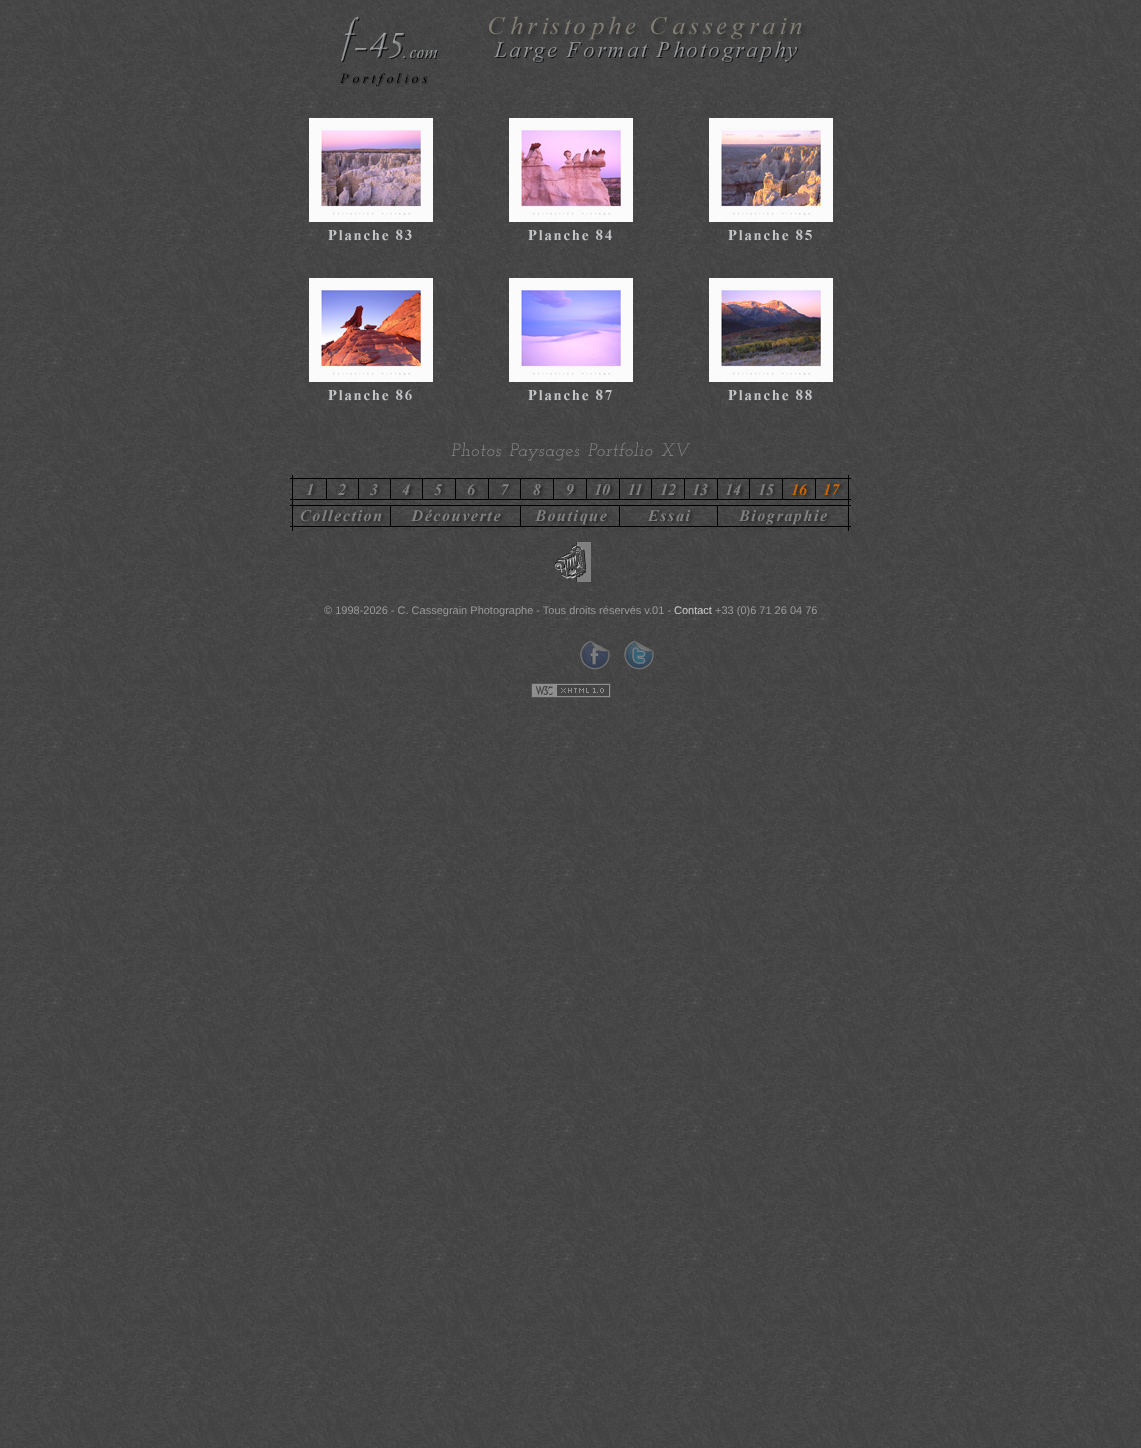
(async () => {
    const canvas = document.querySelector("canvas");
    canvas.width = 1141;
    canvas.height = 1448;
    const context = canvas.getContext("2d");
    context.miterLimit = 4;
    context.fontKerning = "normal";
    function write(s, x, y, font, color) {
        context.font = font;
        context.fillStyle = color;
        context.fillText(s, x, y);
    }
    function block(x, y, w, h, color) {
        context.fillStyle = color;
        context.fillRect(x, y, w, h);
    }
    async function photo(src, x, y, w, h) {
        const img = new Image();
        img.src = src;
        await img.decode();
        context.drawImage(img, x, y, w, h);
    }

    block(0, 0, 1141, 1448, "rgb(255, 255, 255)");
    await photo("media/1.png", 0, 0, 1141, 1448);
    await photo("media/2.png", 315, 11, 512, 60);
    await photo("media/3.png", 315, 71, 512, 16);
    await photo("media/4.png", 309, 118, 124, 104);
    await photo("media/5.png", 321, 222, 100, 26);
    await photo("media/6.png", 509, 118, 124, 104);
    await photo("media/7.png", 521, 222, 100, 26);
    await photo("media/8.png", 709, 118, 124, 104);
    await photo("media/9.png", 721, 222, 100, 26);
    await photo("media/10.png", 309, 278, 124, 104);
    await photo("media/11.png", 321, 382, 100, 26);
    await photo("media/12.png", 509, 278, 124, 104);
    await photo("media/13.png", 521, 382, 100, 26);
    await photo("media/14.png", 709, 278, 124, 104);
    await photo("media/15.png", 721, 382, 100, 26);
    context.letterSpacing = "0.7px";
    context.wordSpacing = "1.5px";
    write("Photos Paysages Portfolio XV", 451, 456, "italic 18px Josefin Slab", "rgb(135, 135, 135)");
    await photo("media/16.png", 285, 475, 572, 3);
    await photo("media/17.png", 285, 478, 7, 53);
    await photo("media/18.png", 292, 478, 35, 21);
    await photo("media/19.png", 327, 478, 32, 21);
    await photo("media/20.png", 359, 478, 32, 21);
    await photo("media/21.png", 391, 478, 32, 21);
    await photo("media/22.png", 423, 478, 33, 21);
    await photo("media/23.png", 456, 478, 33, 21);
    await photo("media/24.png", 489, 478, 32, 21);
    await photo("media/25.png", 521, 478, 33, 21);
    await photo("media/26.png", 554, 478, 33, 21);
    await photo("media/27.png", 587, 478, 33, 21);
    await photo("media/28.png", 620, 478, 32, 21);
    await photo("media/29.png", 652, 478, 33, 21);
    await photo("media/30.png", 685, 478, 33, 21);
    await photo("media/31.png", 718, 478, 32, 21);
    await photo("media/32.png", 750, 478, 33, 21);
    await photo("media/33.png", 783, 478, 33, 21);
    await photo("media/34.png", 816, 478, 32, 21);
    await photo("media/35.png", 848, 478, 9, 53);
    await photo("media/36.png", 292, 499, 556, 6);
    await photo("media/37.png", 292, 505, 98, 21);
    await photo("media/38.png", 390, 505, 130, 21);
    await photo("media/39.png", 520, 505, 99, 21);
    await photo("media/40.png", 619, 505, 98, 21);
    await photo("media/41.png", 717, 505, 131, 21);
    await photo("media/42.png", 292, 526, 556, 5);
    await photo("media/43.png", 551, 542, 40, 40);
    context.letterSpacing = "0px";
    context.wordSpacing = "0px";
    write("© 1998-2026 - C. Cassegrain Photographe - Tous droits réservés v.01 -", 324, 614, "11px Liberation Sans", "rgb(153, 153, 153)");
    write("Contact", 674, 614, "11px Liberation Sans", "rgb(204, 204, 204)");
    write("+33 (0)6 71 26 04 76", 715, 614, "11px Liberation Sans", "rgb(153, 153, 153)");
    await photo("media/44.png", 580, 640, 30, 30);
    await photo("media/45.png", 624, 640, 30, 30);
    await photo("media/46.png", 531, 683, 80, 15);
})();
